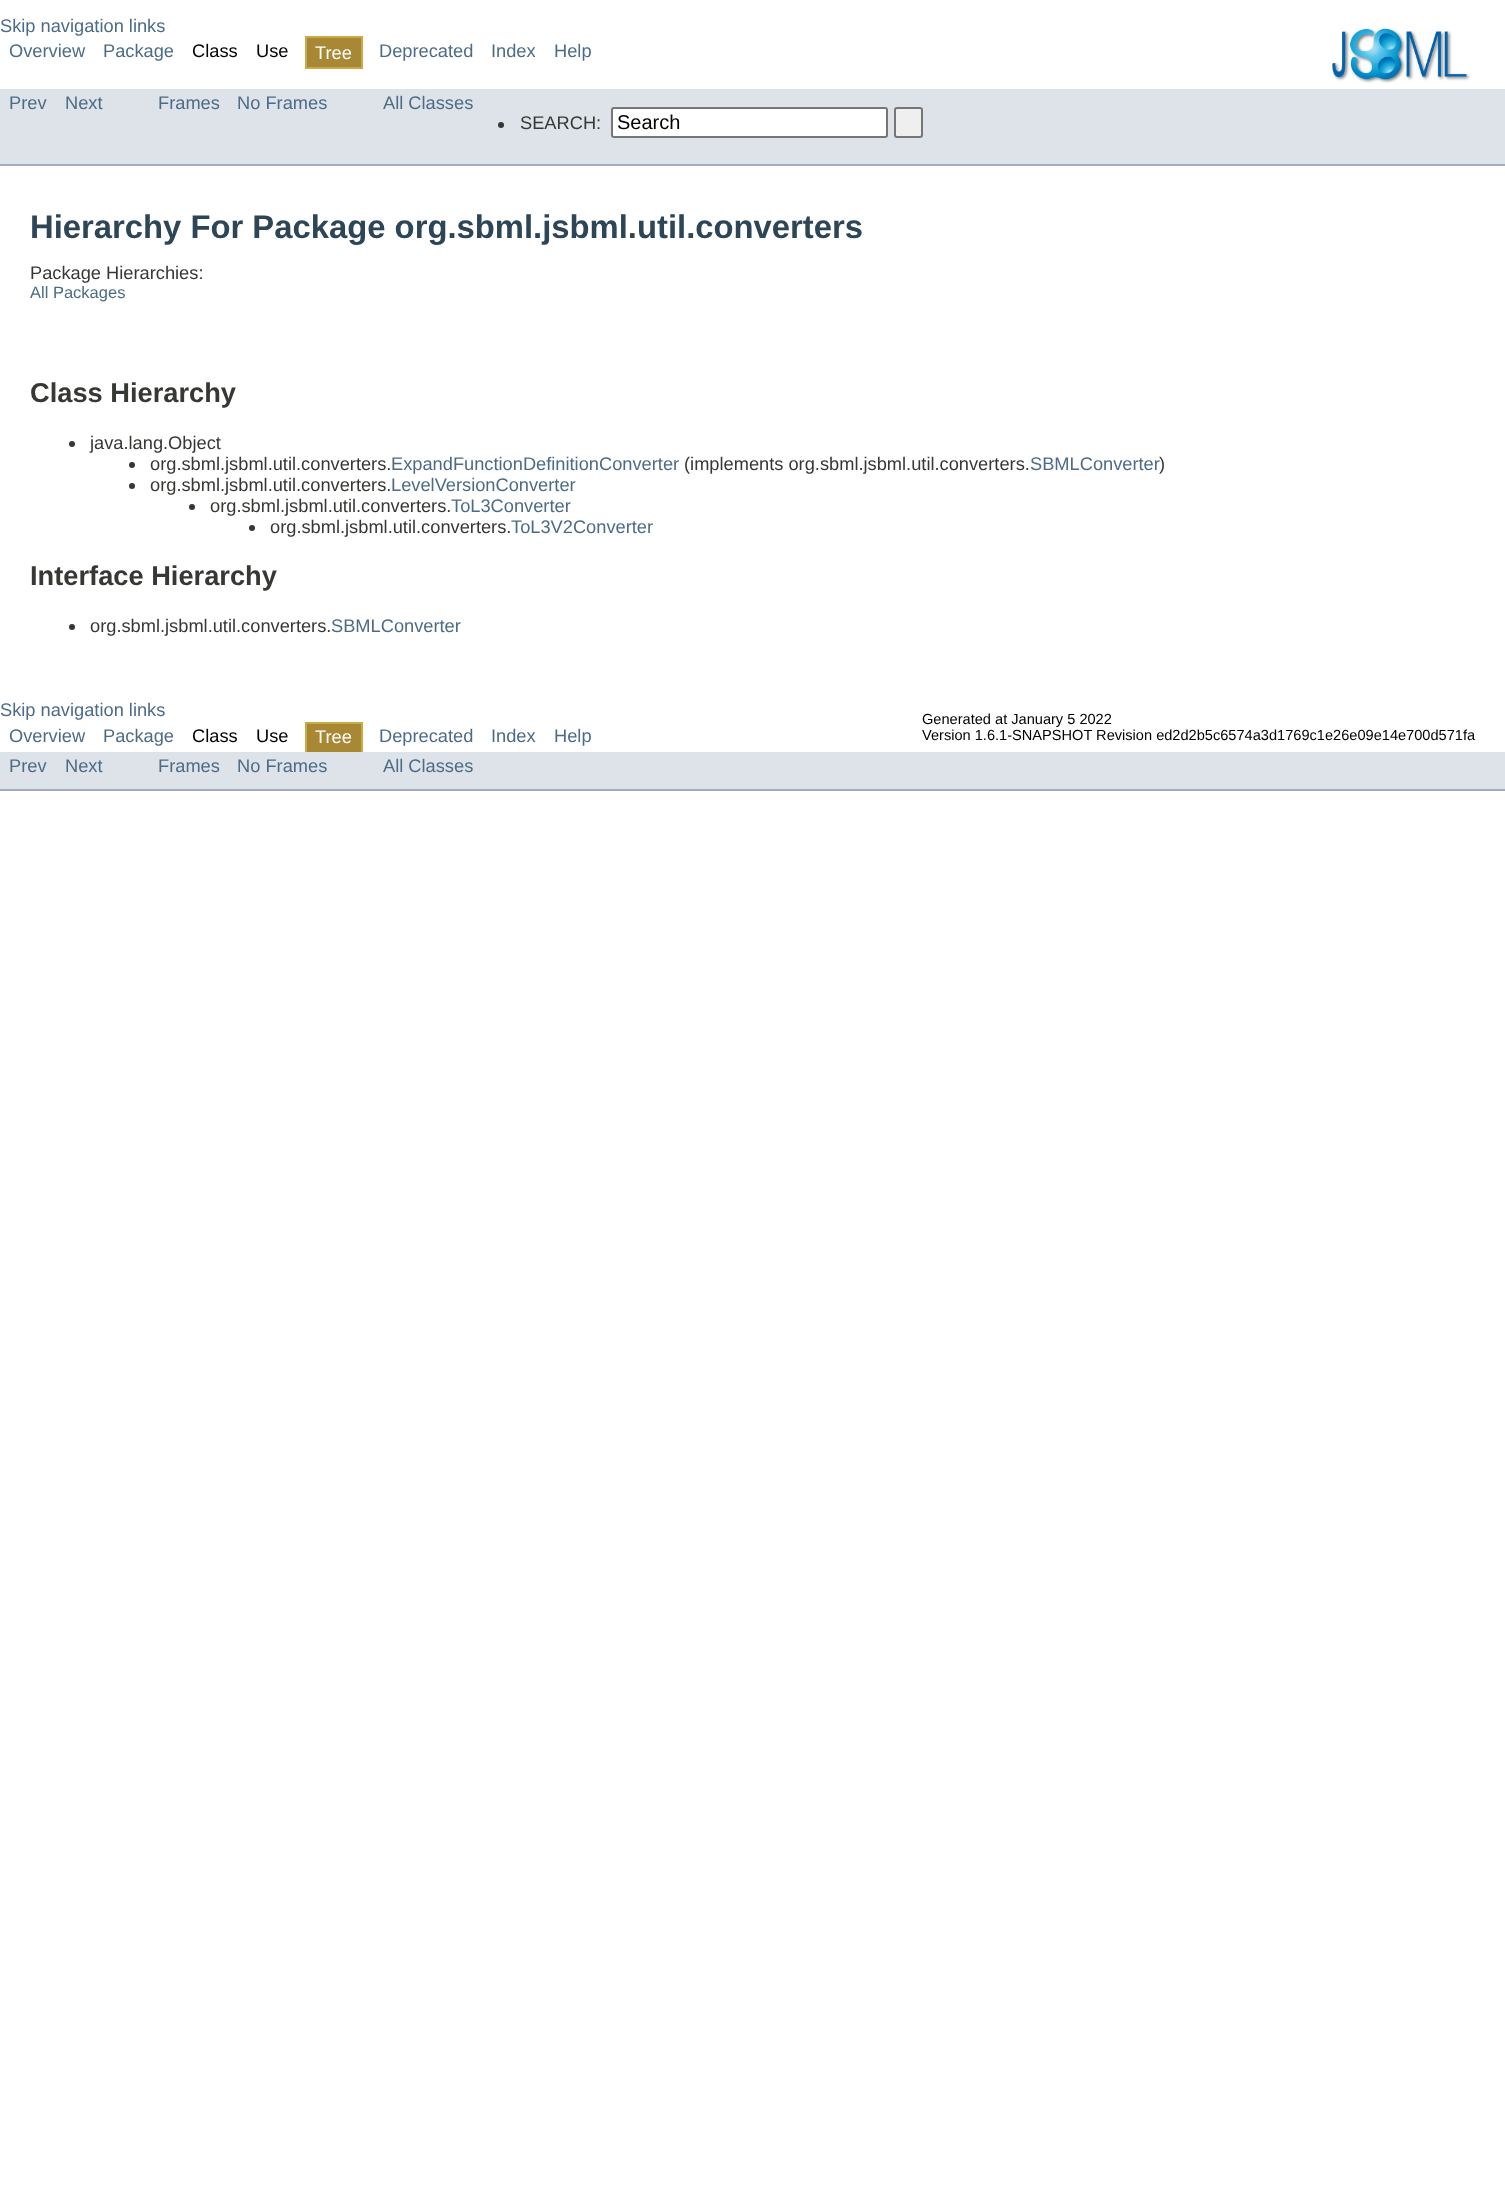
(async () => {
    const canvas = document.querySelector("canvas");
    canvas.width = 1505;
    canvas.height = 2192;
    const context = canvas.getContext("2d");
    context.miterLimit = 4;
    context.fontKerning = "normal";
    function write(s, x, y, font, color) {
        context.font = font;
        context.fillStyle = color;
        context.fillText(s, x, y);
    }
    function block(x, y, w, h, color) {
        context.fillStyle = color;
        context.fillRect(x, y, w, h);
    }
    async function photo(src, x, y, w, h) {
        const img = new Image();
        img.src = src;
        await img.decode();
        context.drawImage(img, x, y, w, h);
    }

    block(0, 0, 1505, 2192, "rgb(255, 255, 255)");
    write("Skip navigation links", 0, 32, "18.25px Liberation Sans", "rgb(76, 107, 135)");
    await photo("media/1.png", 1331, 28, 139, 55);
    write("Overview", 9, 57, "18.25px Liberation Sans", "rgb(76, 107, 135)");
    write("Package", 103, 57, "18.25px Liberation Sans", "rgb(76, 107, 135)");
    write("Class", 192, 57, "18.25px Liberation Sans", "rgb(0, 0, 0)");
    write("Use", 256, 57, "18.25px Liberation Sans", "rgb(0, 0, 0)");
    context.fillStyle = "rgb(168, 136, 52)";
    context.beginPath();
    context.rect(306, 37, 56, 31);
    context.fill();
    context.strokeStyle = "rgb(201, 170, 68)";
    context.lineWidth = 2;
    context.stroke();
    write("Tree", 315, 59, "18.25px Liberation Sans", "rgb(255, 255, 255)");
    write("Deprecated", 379, 57, "18.25px Liberation Sans", "rgb(76, 107, 135)");
    write("Index", 491, 57, "18.25px Liberation Sans", "rgb(76, 107, 135)");
    write("Help", 554, 57, "18.25px Liberation Sans", "rgb(76, 107, 135)");
    block(0, 89, 1505, 75, "rgb(222, 227, 233)");
    block(0, 164, 1505, 2, "rgb(158, 173, 192)");
    write("Prev", 9, 109, "18.25px Liberation Sans", "rgb(76, 107, 135)");
    write("Next", 65, 109, "18.25px Liberation Sans", "rgb(76, 107, 135)");
    write("Frames", 158, 109, "18.25px Liberation Sans", "rgb(76, 107, 135)");
    write("No Frames", 237, 109, "18.25px Liberation Sans", "rgb(76, 107, 135)");
    write("All Classes", 383, 109, "18.25px Liberation Sans", "rgb(76, 107, 135)");
    context.fillStyle = "rgb(53, 56, 51)";
    context.beginPath();
    context.arc(501, 125, 3, 0, Math.PI * 2);
    context.fill();
    write("SEARCH:", 520, 129, "18.25px Liberation Sans", "rgb(53, 56, 51)");
    context.fillStyle = "rgb(255, 255, 255)";
    context.beginPath();
    context.roundRect(612, 108, 275, 29, 2);
    context.fill();
    context.strokeStyle = "rgb(118, 118, 118)";
    context.stroke();
    write("Search", 617, 129, "20px Liberation Sans", "rgb(0, 0, 0)");
    context.fillStyle = "rgb(239, 239, 239)";
    context.beginPath();
    context.roundRect(895, 108, 27, 29, 2);
    context.fill();
    context.stroke();
    write("Hierarchy For Package org.sbml.jsbml.util.converters", 30, 238, "bold 32.8px Liberation Sans", "rgb(44, 69, 87)");
    write("Package Hierarchies:", 30, 279, "18.25px Liberation Sans", "rgb(53, 56, 51)");
    write("All Packages", 30, 298, "16.5px Liberation Sans", "rgb(76, 107, 135)");
    write("Class Hierarchy", 30, 402, "bold 27.25px Liberation Sans", "rgb(53, 56, 51)");
    context.beginPath();
    context.arc(72, 444, 3, 0, Math.PI * 2);
    context.fill();
    write("java.lang.Object", 90, 449, "18.25px Liberation Sans", "rgb(53, 56, 51)");
    context.beginPath();
    context.arc(132, 465, 3, 0, Math.PI * 2);
    context.fill();
    write("org.sbml.jsbml.util.converters.", 150, 470, "18.25px Liberation Sans", "rgb(53, 56, 51)");
    write("ExpandFunctionDefinitionConverter", 391, 470, "18.25px Liberation Sans", "rgb(76, 107, 135)");
    write("(implements org.sbml.jsbml.util.converters.", 684, 470, "18.25px Liberation Sans", "rgb(53, 56, 51)");
    write("SBMLConverter", 1030, 470, "18.25px Liberation Sans", "rgb(76, 107, 135)");
    write(")", 1159, 470, "18.25px Liberation Sans", "rgb(53, 56, 51)");
    context.beginPath();
    context.arc(132, 486, 3, 0, Math.PI * 2);
    context.fill();
    write("org.sbml.jsbml.util.converters.", 150, 491, "18.25px Liberation Sans", "rgb(53, 56, 51)");
    write("LevelVersionConverter", 391, 491, "18.25px Liberation Sans", "rgb(76, 107, 135)");
    context.fillStyle = "rgb(53, 56, 51)";
    context.beginPath();
    context.arc(192, 507, 3, 0, Math.PI * 2);
    context.fill();
    write("org.sbml.jsbml.util.converters.", 210, 512, "18.25px Liberation Sans", "rgb(53, 56, 51)");
    write("ToL3Converter", 451, 512, "18.25px Liberation Sans", "rgb(76, 107, 135)");
    context.fillStyle = "rgb(53, 56, 51)";
    context.beginPath();
    context.arc(252, 528, 3, 0, Math.PI * 2);
    context.fill();
    write("org.sbml.jsbml.util.converters.", 270, 533, "18.25px Liberation Sans", "rgb(53, 56, 51)");
    write("ToL3V2Converter", 511, 533, "18.25px Liberation Sans", "rgb(76, 107, 135)");
    write("Interface Hierarchy", 30, 585, "bold 27.25px Liberation Sans", "rgb(53, 56, 51)");
    context.beginPath();
    context.arc(72, 627, 3, 0, Math.PI * 2);
    context.fill();
    write("org.sbml.jsbml.util.converters.", 90, 632, "18.25px Liberation Sans", "rgb(53, 56, 51)");
    write("SBMLConverter", 331, 632, "18.25px Liberation Sans", "rgb(76, 107, 135)");
    write("Skip navigation links", 0, 716, "18.25px Liberation Sans", "rgb(76, 107, 135)");
    write("Overview", 9, 742, "18.25px Liberation Sans", "rgb(76, 107, 135)");
    write("Package", 103, 742, "18.25px Liberation Sans", "rgb(76, 107, 135)");
    write("Class", 192, 742, "18.25px Liberation Sans", "rgb(0, 0, 0)");
    write("Use", 256, 742, "18.25px Liberation Sans", "rgb(0, 0, 0)");
    block(307, 724, 54, 28, "rgb(168, 136, 52)");
    context.strokeStyle = "rgb(201, 170, 68)";
    context.strokeRect(306, 723, 56, 31);
    write("Tree", 315, 743, "18.25px Liberation Sans", "rgb(255, 255, 255)");
    write("Deprecated", 379, 742, "18.25px Liberation Sans", "rgb(76, 107, 135)");
    write("Index", 491, 742, "18.25px Liberation Sans", "rgb(76, 107, 135)");
    write("Help", 554, 742, "18.25px Liberation Sans", "rgb(76, 107, 135)");
    write("Generated at January 5 2022", 922, 724, "14.6px Liberation Sans", "rgb(0, 0, 0)");
    write("Version 1.6.1-SNAPSHOT Revision ed2d2b5c6574a3d1769c1e26e09e14e700d571fa", 922, 740, "14.6px Liberation Sans", "rgb(0, 0, 0)");
    block(0, 752, 1505, 37, "rgb(222, 227, 233)");
    block(0, 789, 1505, 2, "rgb(158, 173, 192)");
    write("Prev", 9, 772, "18.25px Liberation Sans", "rgb(76, 107, 135)");
    write("Next", 65, 772, "18.25px Liberation Sans", "rgb(76, 107, 135)");
    write("Frames", 158, 772, "18.25px Liberation Sans", "rgb(76, 107, 135)");
    write("No Frames", 237, 772, "18.25px Liberation Sans", "rgb(76, 107, 135)");
    write("All Classes", 383, 772, "18.25px Liberation Sans", "rgb(76, 107, 135)");
})();
